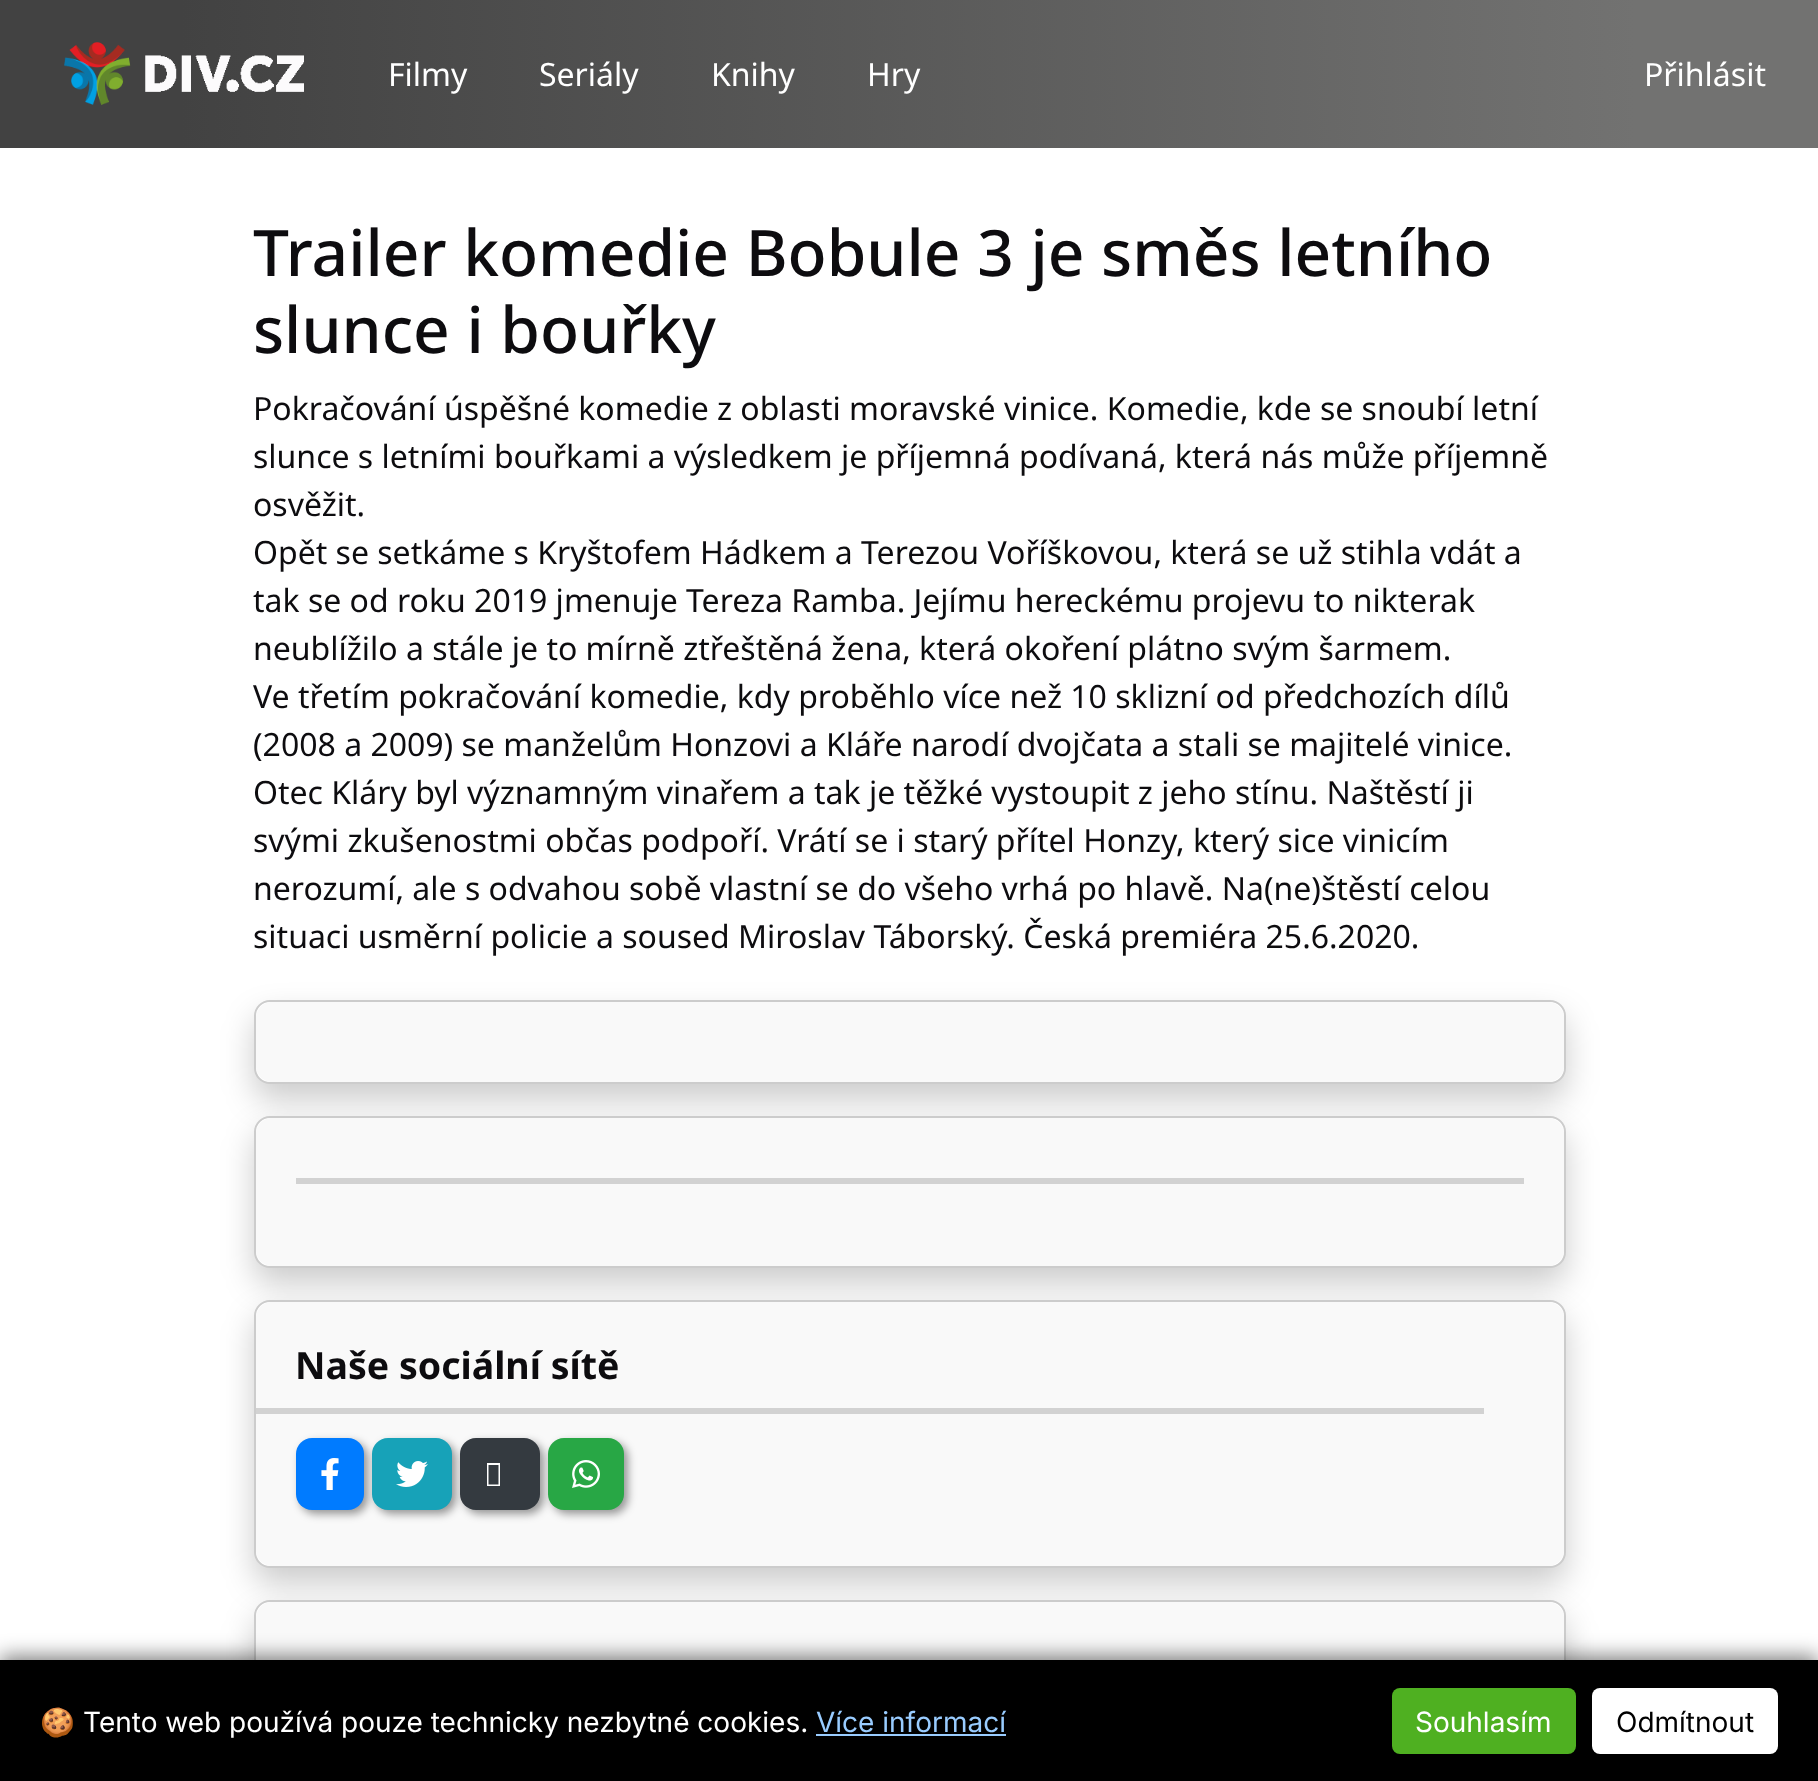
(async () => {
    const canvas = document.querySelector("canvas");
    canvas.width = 1818;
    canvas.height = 1781;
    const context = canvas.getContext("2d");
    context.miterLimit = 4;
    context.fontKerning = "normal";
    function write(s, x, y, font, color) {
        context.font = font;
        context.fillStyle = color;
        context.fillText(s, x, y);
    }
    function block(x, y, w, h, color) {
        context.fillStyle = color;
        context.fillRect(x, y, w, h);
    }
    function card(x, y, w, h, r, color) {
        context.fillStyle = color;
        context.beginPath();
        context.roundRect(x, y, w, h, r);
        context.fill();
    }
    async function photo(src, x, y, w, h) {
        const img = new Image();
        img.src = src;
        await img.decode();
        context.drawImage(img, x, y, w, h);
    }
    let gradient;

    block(0, 0, 1818, 1781, "rgb(255, 255, 255)");
    gradient = context.createLinearGradient(0, 74, 1818, 74);
    gradient.addColorStop(0.1, "rgb(66, 66, 66)");
    gradient.addColorStop(0.9, "rgb(114, 114, 113)");
    context.fillStyle = gradient;
    context.fillRect(0, 0, 1818, 148);
    await photo("media/1.png", 64, 42, 240, 63);
    write("Filmy", 388, 86, "32px Noto Sans", "rgb(255, 255, 255)");
    write("Seriály", 539, 86, "32px Noto Sans", "rgb(255, 255, 255)");
    write("Knihy", 711, 86, "32px Noto Sans", "rgb(255, 255, 255)");
    write("Hry", 867, 86, "32px Noto Sans", "rgb(255, 255, 255)");
    write("Přihlásit", 1644, 86, "32px Noto Sans", "rgb(255, 255, 255)");
    write("Trailer komedie Bobule 3 je směs letního", 253, 276, "500 64px Noto Sans", "rgb(13, 12, 15)");
    write("slunce i bouřky", 253, 353, "500 64px Noto Sans", "rgb(13, 12, 15)");
    write("Pokračování úspěšné komedie z oblasti moravské vinice. Komedie, kde se snoubí letní", 253, 420, "32px Noto Sans", "rgb(13, 12, 15)");
    write("slunce s letními bouřkami a výsledkem je příjemná podívaná, která nás může příjemně", 253, 468, "32px Noto Sans", "rgb(13, 12, 15)");
    write("osvěžit.", 253, 516, "32px Noto Sans", "rgb(13, 12, 15)");
    write("Opět se setkáme s Kryštofem Hádkem a Terezou Voříškovou, která se už stihla vdát a", 253, 564, "32px Noto Sans", "rgb(13, 12, 15)");
    write("tak se od roku 2019 jmenuje Tereza Ramba. Jejímu hereckému projevu to nikterak", 253, 612, "32px Noto Sans", "rgb(13, 12, 15)");
    write("neublížilo a stále je to mírně ztřeštěná žena, která okoření plátno svým šarmem.", 253, 660, "32px Noto Sans", "rgb(13, 12, 15)");
    write("Ve třetím pokračování komedie, kdy proběhlo více než 10 sklizní od předchozích dílů", 253, 708, "32px Noto Sans", "rgb(13, 12, 15)");
    write("(2008 a 2009) se manželům Honzovi a Kláře narodí dvojčata a stali se majitelé vinice.", 253, 756, "32px Noto Sans", "rgb(13, 12, 15)");
    write("Otec Kláry byl významným vinařem a tak je těžké vystoupit z jeho stínu. Naštěstí ji", 253, 804, "32px Noto Sans", "rgb(13, 12, 15)");
    write("svými zkušenostmi občas podpoří. Vrátí se i starý přítel Honzy, který sice vinicím", 253, 852, "32px Noto Sans", "rgb(13, 12, 15)");
    write("nerozumí, ale s odvahou sobě vlastní se do všeho vrhá po hlavě. Na(ne)štěstí celou", 253, 900, "32px Noto Sans", "rgb(13, 12, 15)");
    write("situaci usměrní policie a soused Miroslav Táborský. Česká premiéra 25.6.2020.", 253, 948, "32px Noto Sans", "rgb(13, 12, 15)");
    context.fillStyle = "rgba(0, 0, 0, 0.2)";
    context.filter = "blur(16px)";
    context.beginPath();
    context.roundRect(254, 1016, 1312, 84, 16);
    context.fill();
    context.filter = "none";
    context.fillStyle = "rgb(255, 255, 255)";
    context.beginPath();
    context.roundRect(255, 1001, 1310, 82, 15);
    context.fill();
    context.strokeStyle = "rgb(204, 204, 204)";
    context.lineWidth = 2;
    context.stroke();
    card(256, 1002, 1308, 80, 16, "rgb(249, 249, 249)");
    context.fillStyle = "rgba(0, 0, 0, 0.2)";
    context.filter = "blur(16px)";
    context.beginPath();
    context.roundRect(254, 1132, 1312, 152, 16);
    context.fill();
    context.filter = "none";
    context.fillStyle = "rgb(255, 255, 255)";
    context.beginPath();
    context.roundRect(255, 1117, 1310, 150, 15);
    context.fill();
    context.stroke();
    card(256, 1118, 1308, 148, 16, "rgb(249, 249, 249)");
    block(296, 1178, 1228, 6, "rgb(210, 210, 210)");
    context.fillStyle = "rgba(0, 0, 0, 0.2)";
    context.filter = "blur(16px)";
    context.beginPath();
    context.roundRect(254, 1316, 1312, 268, 16);
    context.fill();
    context.filter = "none";
    context.fillStyle = "rgb(255, 255, 255)";
    context.beginPath();
    context.roundRect(255, 1301, 1310, 266, 15);
    context.fill();
    context.stroke();
    card(256, 1302, 1308, 264, 16, "rgb(249, 249, 249)");
    write("Naše sociální sítě", 295, 1379, "bold 37.5px Noto Sans", "rgb(13, 12, 15)");
    block(256, 1408, 1228, 6, "rgb(210, 210, 210)");
    context.fillStyle = "rgba(0, 0, 0, 0.4)";
    context.filter = "blur(4px)";
    context.beginPath();
    context.roundRect(300, 1442, 68, 72, 16);
    context.fill();
    context.filter = "none";
    card(296, 1438, 68, 72, 16, "rgb(0, 123, 255)");
    await photo("media/2.png", 321, 1458, 18, 32);
    context.fillStyle = "rgba(0, 0, 0, 0.4)";
    context.filter = "blur(4px)";
    context.beginPath();
    context.roundRect(376, 1442, 80, 72, 16);
    context.fill();
    context.filter = "none";
    card(372, 1438, 80, 72, 16, "rgb(23, 162, 184)");
    await photo("media/3.png", 396, 1461, 32, 26);
    context.fillStyle = "rgba(0, 0, 0, 0.4)";
    context.filter = "blur(4px)";
    context.beginPath();
    context.roundRect(464, 1442, 80, 72, 16);
    context.fill();
    context.filter = "none";
    card(460, 1438, 80, 72, 16, "rgb(52, 58, 64)");
    context.fillStyle = "rgb(255, 255, 255)";
    context.beginPath();
    context.moveTo(487, 1486);
    context.lineTo(487, 1463);
    context.lineTo(500, 1463);
    context.lineTo(500, 1486);
    context.closePath();
    context.moveTo(488.5, 1484.5);
    context.lineTo(498.5, 1484.5);
    context.lineTo(498.5, 1465);
    context.lineTo(488.5, 1465);
    context.closePath();
    context.fill();
    context.fillStyle = "rgba(0, 0, 0, 0.4)";
    context.filter = "blur(4px)";
    context.beginPath();
    context.roundRect(552, 1442, 76, 72, 16);
    context.fill();
    context.filter = "none";
    card(548, 1438, 76, 72, 16, "rgb(40, 167, 69)");
    await photo("media/4.png", 572, 1460, 28, 28);
    context.fillStyle = "rgba(0, 0, 0, 0.2)";
    context.filter = "blur(16px)";
    context.beginPath();
    context.roundRect(254, 1616, 1312, 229, 16);
    context.fill();
    context.filter = "none";
    context.fillStyle = "rgb(255, 255, 255)";
    context.beginPath();
    context.roundRect(255, 1601, 1310, 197, 15);
    context.fill();
    context.stroke();
    card(256, 1602, 1308, 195, 16, "rgb(249, 249, 249)");
    context.fillStyle = "rgba(0, 0, 0, 0.5)";
    context.filter = "blur(10px)";
    context.beginPath();
    context.rect(0, 1656, 1818, 122);
    context.fill();
    context.filter = "none";
    block(0, 1660, 1818, 121, "rgb(0, 0, 0)");
    write("🍪", 40, 1732, "28px Noto Color Emoji", "rgb(255, 255, 255)");
    write("Tento web používá pouze technicky nezbytné cookies.", 83, 1732, "28px Inter", "rgb(255, 255, 255)");
    write("Více informací", 816, 1732, "28px Inter", "rgb(153, 204, 255)");
    block(816, 1734, 190, 2, "rgb(153, 204, 255)");
    card(1392, 1688, 184, 66, 8, "rgb(79, 176, 33)");
    write("Souhlasím", 1415, 1732, "28px Inter", "rgb(255, 255, 255)");
    card(1592, 1688, 186, 66, 8, "rgb(255, 255, 255)");
    write("Odmítnout", 1616, 1732, "28px Inter", "rgb(0, 0, 0)");
})();
